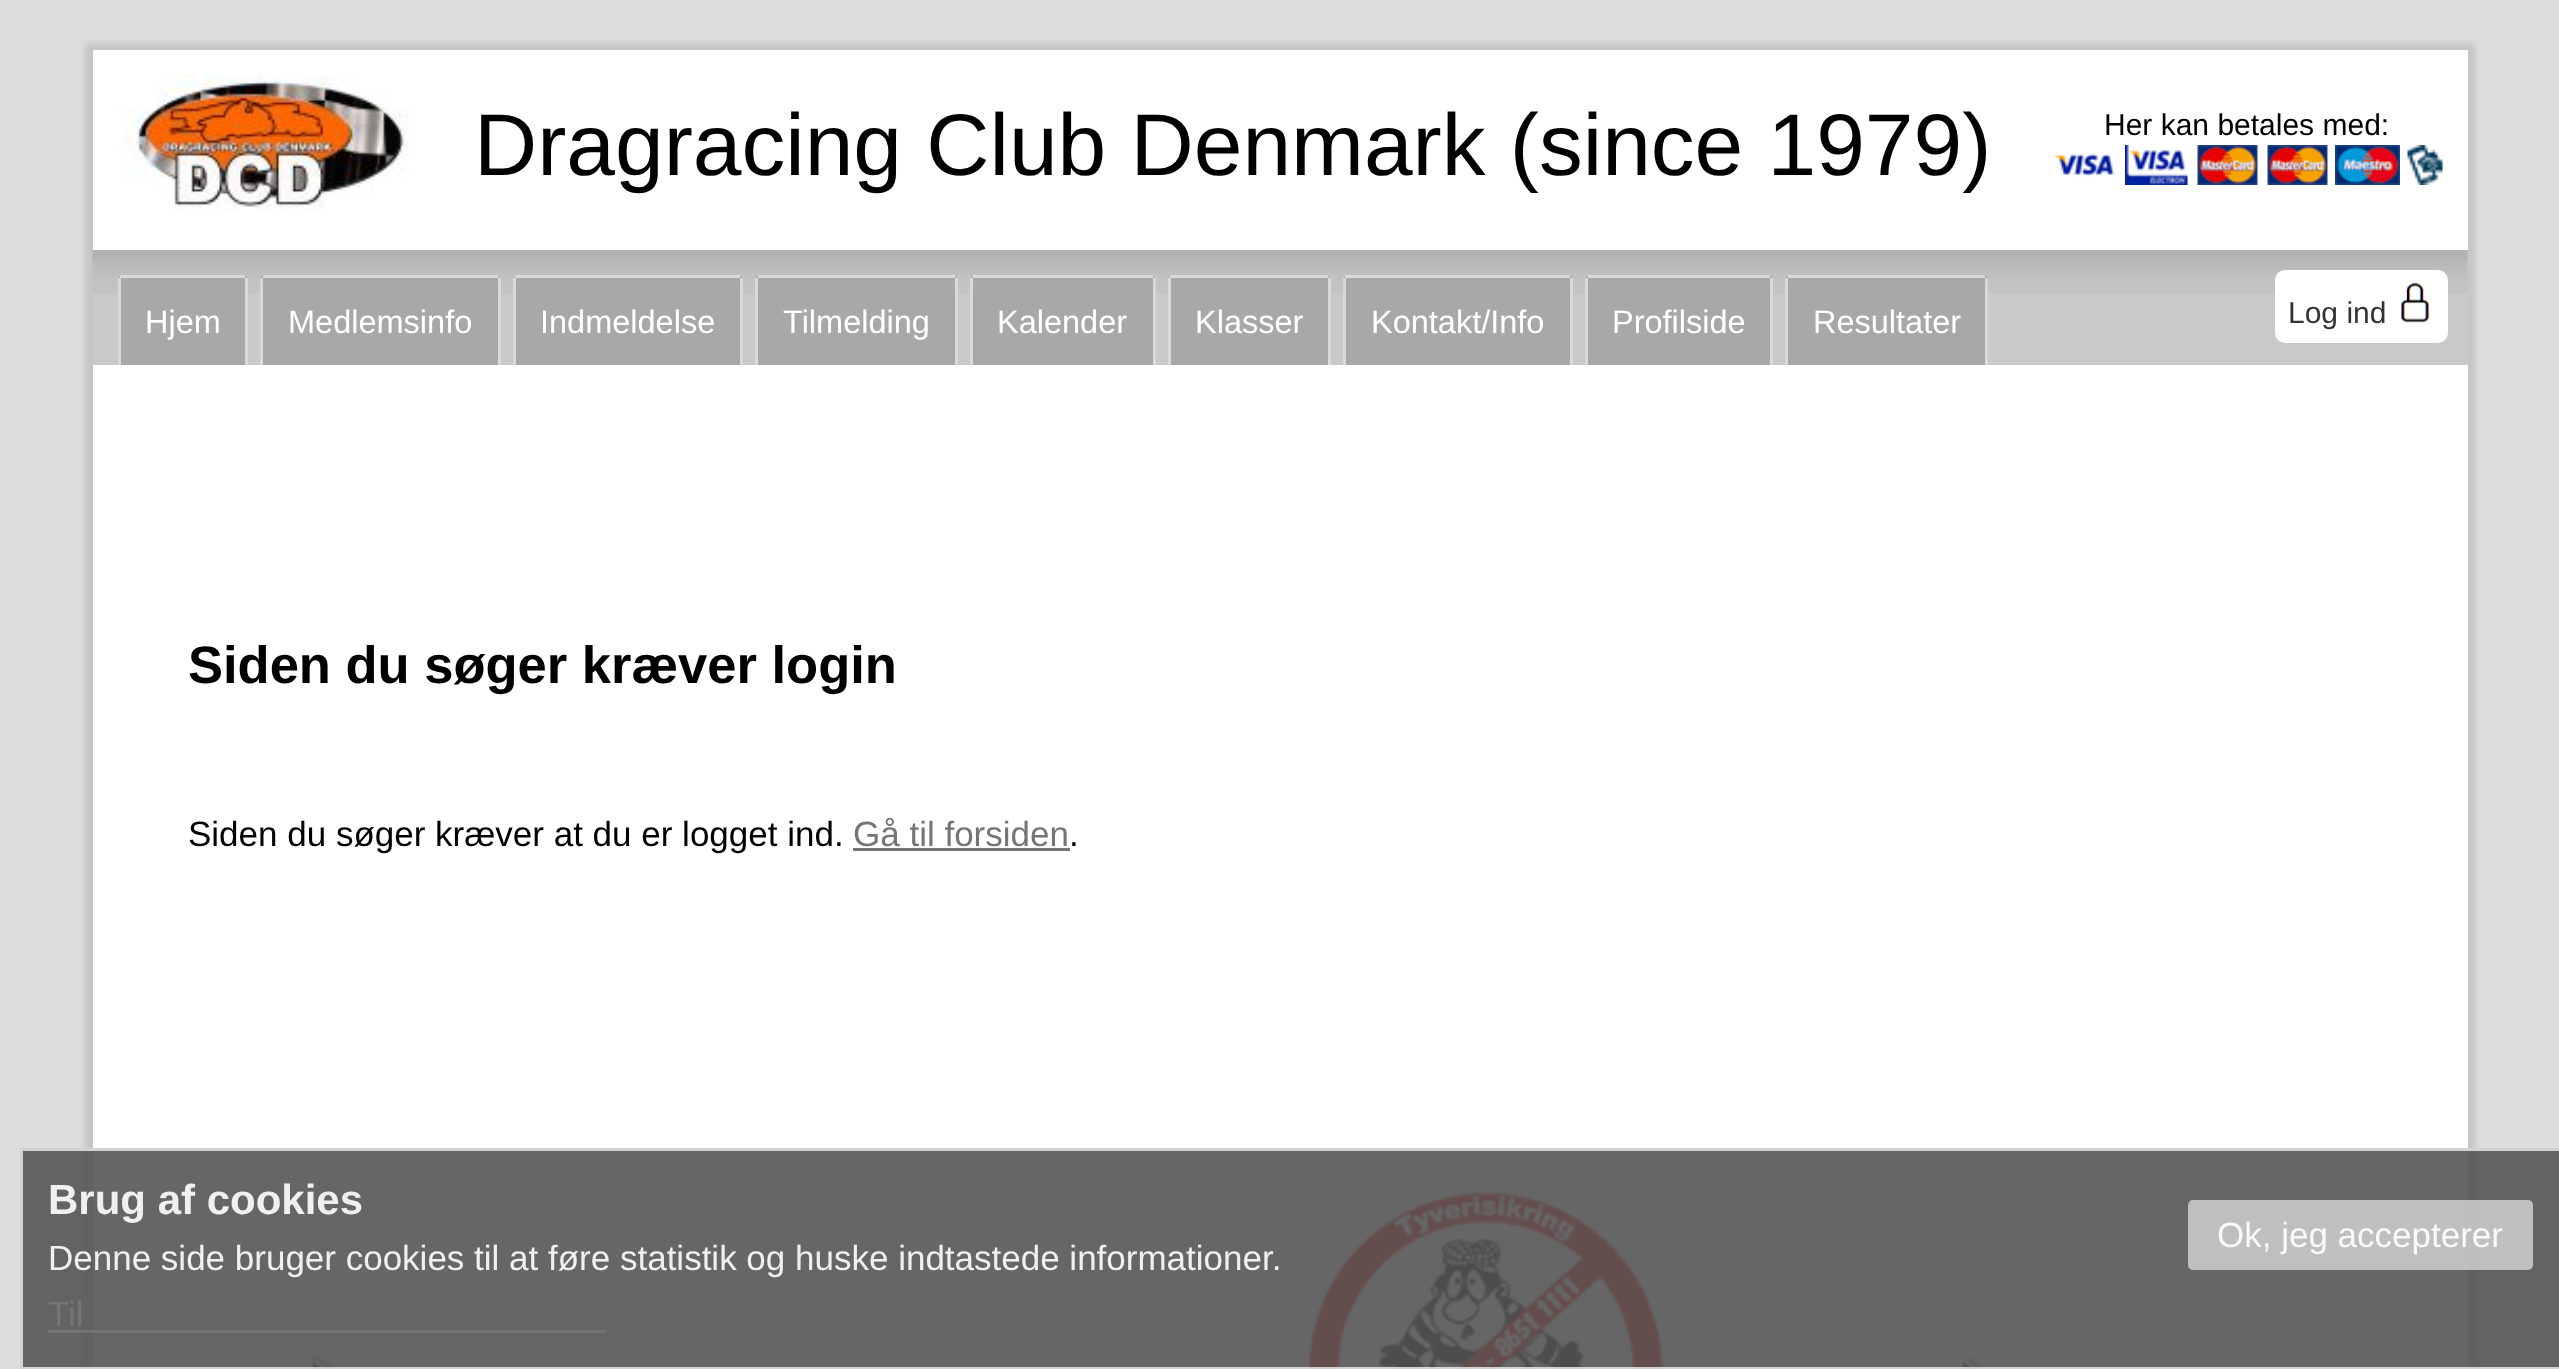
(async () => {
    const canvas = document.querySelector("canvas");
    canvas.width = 2559;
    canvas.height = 1369;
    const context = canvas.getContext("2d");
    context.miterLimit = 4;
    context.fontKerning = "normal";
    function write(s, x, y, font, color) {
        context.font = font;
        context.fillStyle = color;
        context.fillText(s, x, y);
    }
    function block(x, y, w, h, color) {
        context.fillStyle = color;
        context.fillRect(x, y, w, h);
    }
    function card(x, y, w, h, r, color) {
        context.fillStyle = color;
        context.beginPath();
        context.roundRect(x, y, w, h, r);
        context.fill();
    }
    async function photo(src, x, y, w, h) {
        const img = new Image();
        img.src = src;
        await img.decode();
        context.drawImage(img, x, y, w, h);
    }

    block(0, 0, 2559, 1369, "rgb(221, 221, 221)");
    context.fillStyle = "rgba(0, 0, 0, 0.1)";
    context.filter = "blur(2.5px)";
    context.beginPath();
    context.rect(85, 43, 2390, 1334);
    context.fill();
    context.filter = "none";
    block(93, 50, 2375, 1319, "rgb(255, 255, 255)");
    await photo("media/1.png", 122, 75, 287, 136);
    write("Dragracing Club Denmark (since 1979)", 474, 175, "87.5px Liberation Sans", "rgb(0, 0, 0)");
    write("Her kan betales med:", 2104, 135, "30px Liberation Sans", "rgb(0, 0, 0)");
    await photo("media/2.png", 2054, 153, 61, 24);
    await photo("media/3.png", 2125, 145, 63, 40);
    await photo("media/4.png", 2197, 145, 61, 40);
    await photo("media/5.png", 2267, 145, 61, 40);
    await photo("media/6.png", 2335, 145, 65, 40);
    await photo("media/7.png", 2407, 145, 36, 40);
    block(93, 250, 2375, 115, "rgb(201, 201, 201)");
    await photo("media/8.png", 92, 250, 2376, 44);
    context.fillStyle = "rgb(168, 168, 168)";
    context.beginPath();
    context.roundRect(118, 275, 130, 90, [5, 5, 0, 0]);
    context.fill();
    block(120, 275, 125, 3, "rgb(217, 217, 217)");
    block(245, 278, 3, 87, "rgb(217, 217, 217)");
    block(118, 278, 3, 87, "rgb(217, 217, 217)");
    write("Hjem", 145, 333, "32.5px Liberation Sans", "rgb(255, 255, 255)");
    context.fillStyle = "rgb(168, 168, 168)";
    context.beginPath();
    context.roundRect(260, 275, 240, 90, [5, 5, 0, 0]);
    context.fill();
    block(263, 275, 235, 3, "rgb(217, 217, 217)");
    block(498, 278, 3, 87, "rgb(217, 217, 217)");
    block(260, 278, 3, 87, "rgb(217, 217, 217)");
    write("Medlemsinfo", 288, 333, "32.5px Liberation Sans", "rgb(255, 255, 255)");
    context.fillStyle = "rgb(168, 168, 168)";
    context.beginPath();
    context.roundRect(513, 275, 230, 90, [5, 5, 0, 0]);
    context.fill();
    block(515, 275, 225, 3, "rgb(217, 217, 217)");
    block(740, 278, 3, 87, "rgb(217, 217, 217)");
    block(513, 278, 3, 87, "rgb(217, 217, 217)");
    write("Indmeldelse", 540, 333, "32.5px Liberation Sans", "rgb(255, 255, 255)");
    context.fillStyle = "rgb(168, 168, 168)";
    context.beginPath();
    context.roundRect(755, 275, 203, 90, [5, 5, 0, 0]);
    context.fill();
    block(758, 275, 197, 3, "rgb(217, 217, 217)");
    block(955, 278, 3, 87, "rgb(217, 217, 217)");
    block(755, 278, 3, 87, "rgb(217, 217, 217)");
    write("Tilmelding", 783, 333, "32.5px Liberation Sans", "rgb(255, 255, 255)");
    context.fillStyle = "rgb(168, 168, 168)";
    context.beginPath();
    context.roundRect(970, 275, 185, 90, [5, 5, 0, 0]);
    context.fill();
    block(973, 275, 180, 3, "rgb(217, 217, 217)");
    block(1153, 278, 3, 87, "rgb(217, 217, 217)");
    block(970, 278, 3, 87, "rgb(217, 217, 217)");
    write("Kalender", 997, 333, "32.5px Liberation Sans", "rgb(255, 255, 255)");
    context.fillStyle = "rgb(168, 168, 168)";
    context.beginPath();
    context.roundRect(1168, 275, 162, 90, [5, 5, 0, 0]);
    context.fill();
    block(1170, 275, 158, 3, "rgb(217, 217, 217)");
    block(1328, 278, 3, 87, "rgb(217, 217, 217)");
    block(1168, 278, 3, 87, "rgb(217, 217, 217)");
    write("Klasser", 1195, 333, "32.5px Liberation Sans", "rgb(255, 255, 255)");
    context.fillStyle = "rgb(168, 168, 168)";
    context.beginPath();
    context.roundRect(1343, 275, 230, 90, [5, 5, 0, 0]);
    context.fill();
    block(1345, 275, 225, 3, "rgb(217, 217, 217)");
    block(1570, 278, 3, 87, "rgb(217, 217, 217)");
    block(1343, 278, 3, 87, "rgb(217, 217, 217)");
    write("Kontakt/Info", 1371, 333, "32.5px Liberation Sans", "rgb(255, 255, 255)");
    context.fillStyle = "rgb(168, 168, 168)";
    context.beginPath();
    context.roundRect(1585, 275, 188, 90, [5, 5, 0, 0]);
    context.fill();
    block(1588, 275, 182, 3, "rgb(217, 217, 217)");
    block(1770, 278, 3, 87, "rgb(217, 217, 217)");
    block(1585, 278, 3, 87, "rgb(217, 217, 217)");
    write("Profilside", 1612, 333, "32.5px Liberation Sans", "rgb(255, 255, 255)");
    context.fillStyle = "rgb(168, 168, 168)";
    context.beginPath();
    context.roundRect(1785, 275, 203, 90, [5, 5, 0, 0]);
    context.fill();
    block(1788, 275, 197, 3, "rgb(217, 217, 217)");
    block(1985, 278, 3, 87, "rgb(217, 217, 217)");
    block(1785, 278, 3, 87, "rgb(217, 217, 217)");
    write("Resultater", 1813, 333, "32.5px Liberation Sans", "rgb(255, 255, 255)");
    card(2275, 270, 173, 73, 10, "rgb(255, 255, 255)");
    write("Log ind", 2288, 323, "30px Liberation Sans", "rgb(51, 51, 51)");
    await photo("media/9.png", 2401, 282, 28, 41);
    write("Siden du søger kræver login", 188, 683, "bold 52.5px Liberation Sans", "rgb(0, 0, 0)");
    write("Siden du søger kræver at du er logget ind.", 188, 846, "35px Liberation Sans", "rgb(0, 0, 0)");
    write("Gå til forsiden", 853, 846, "35px Liberation Sans", "rgb(117, 117, 117)");
    block(853, 848, 217, 3, "rgb(117, 117, 117)");
    write(".", 1069, 846, "35px Liberation Sans", "rgb(0, 0, 0)");
    await photo("media/10.png", 305, 1355, 37, 14);
    await photo("media/11.png", 1307, 1192, 357, 177);
    await photo("media/10.png", 1955, 1355, 37, 14);
    block(20, 1148, 2539, 221, "rgba(85, 85, 85, 0.9)");
    context.strokeStyle = "rgba(223, 223, 223, 0.9)";
    context.lineWidth = 3;
    context.strokeRect(21.5, 1149.5, 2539, 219);
    write("Brug af cookies", 48, 1214, "bold 42px Liberation Sans", "rgb(240, 240, 240)");
    card(2188, 1200, 345, 70, 5, "rgba(201, 201, 201, 0.9)");
    write("Ok, jeg accepterer", 2217, 1247, "35px Liberation Sans", "rgb(249, 249, 249)");
    write("Denne side bruger cookies til at føre statistik og huske indtastede informationer.", 48, 1270, "35px Liberation Sans", "rgb(240, 240, 240)");
    write("Til", 48, 1326, "35px Liberation Sans", "rgb(117, 117, 117)");
    block(48, 1330, 557, 3, "rgba(117, 117, 117, 0.9)");
})();
